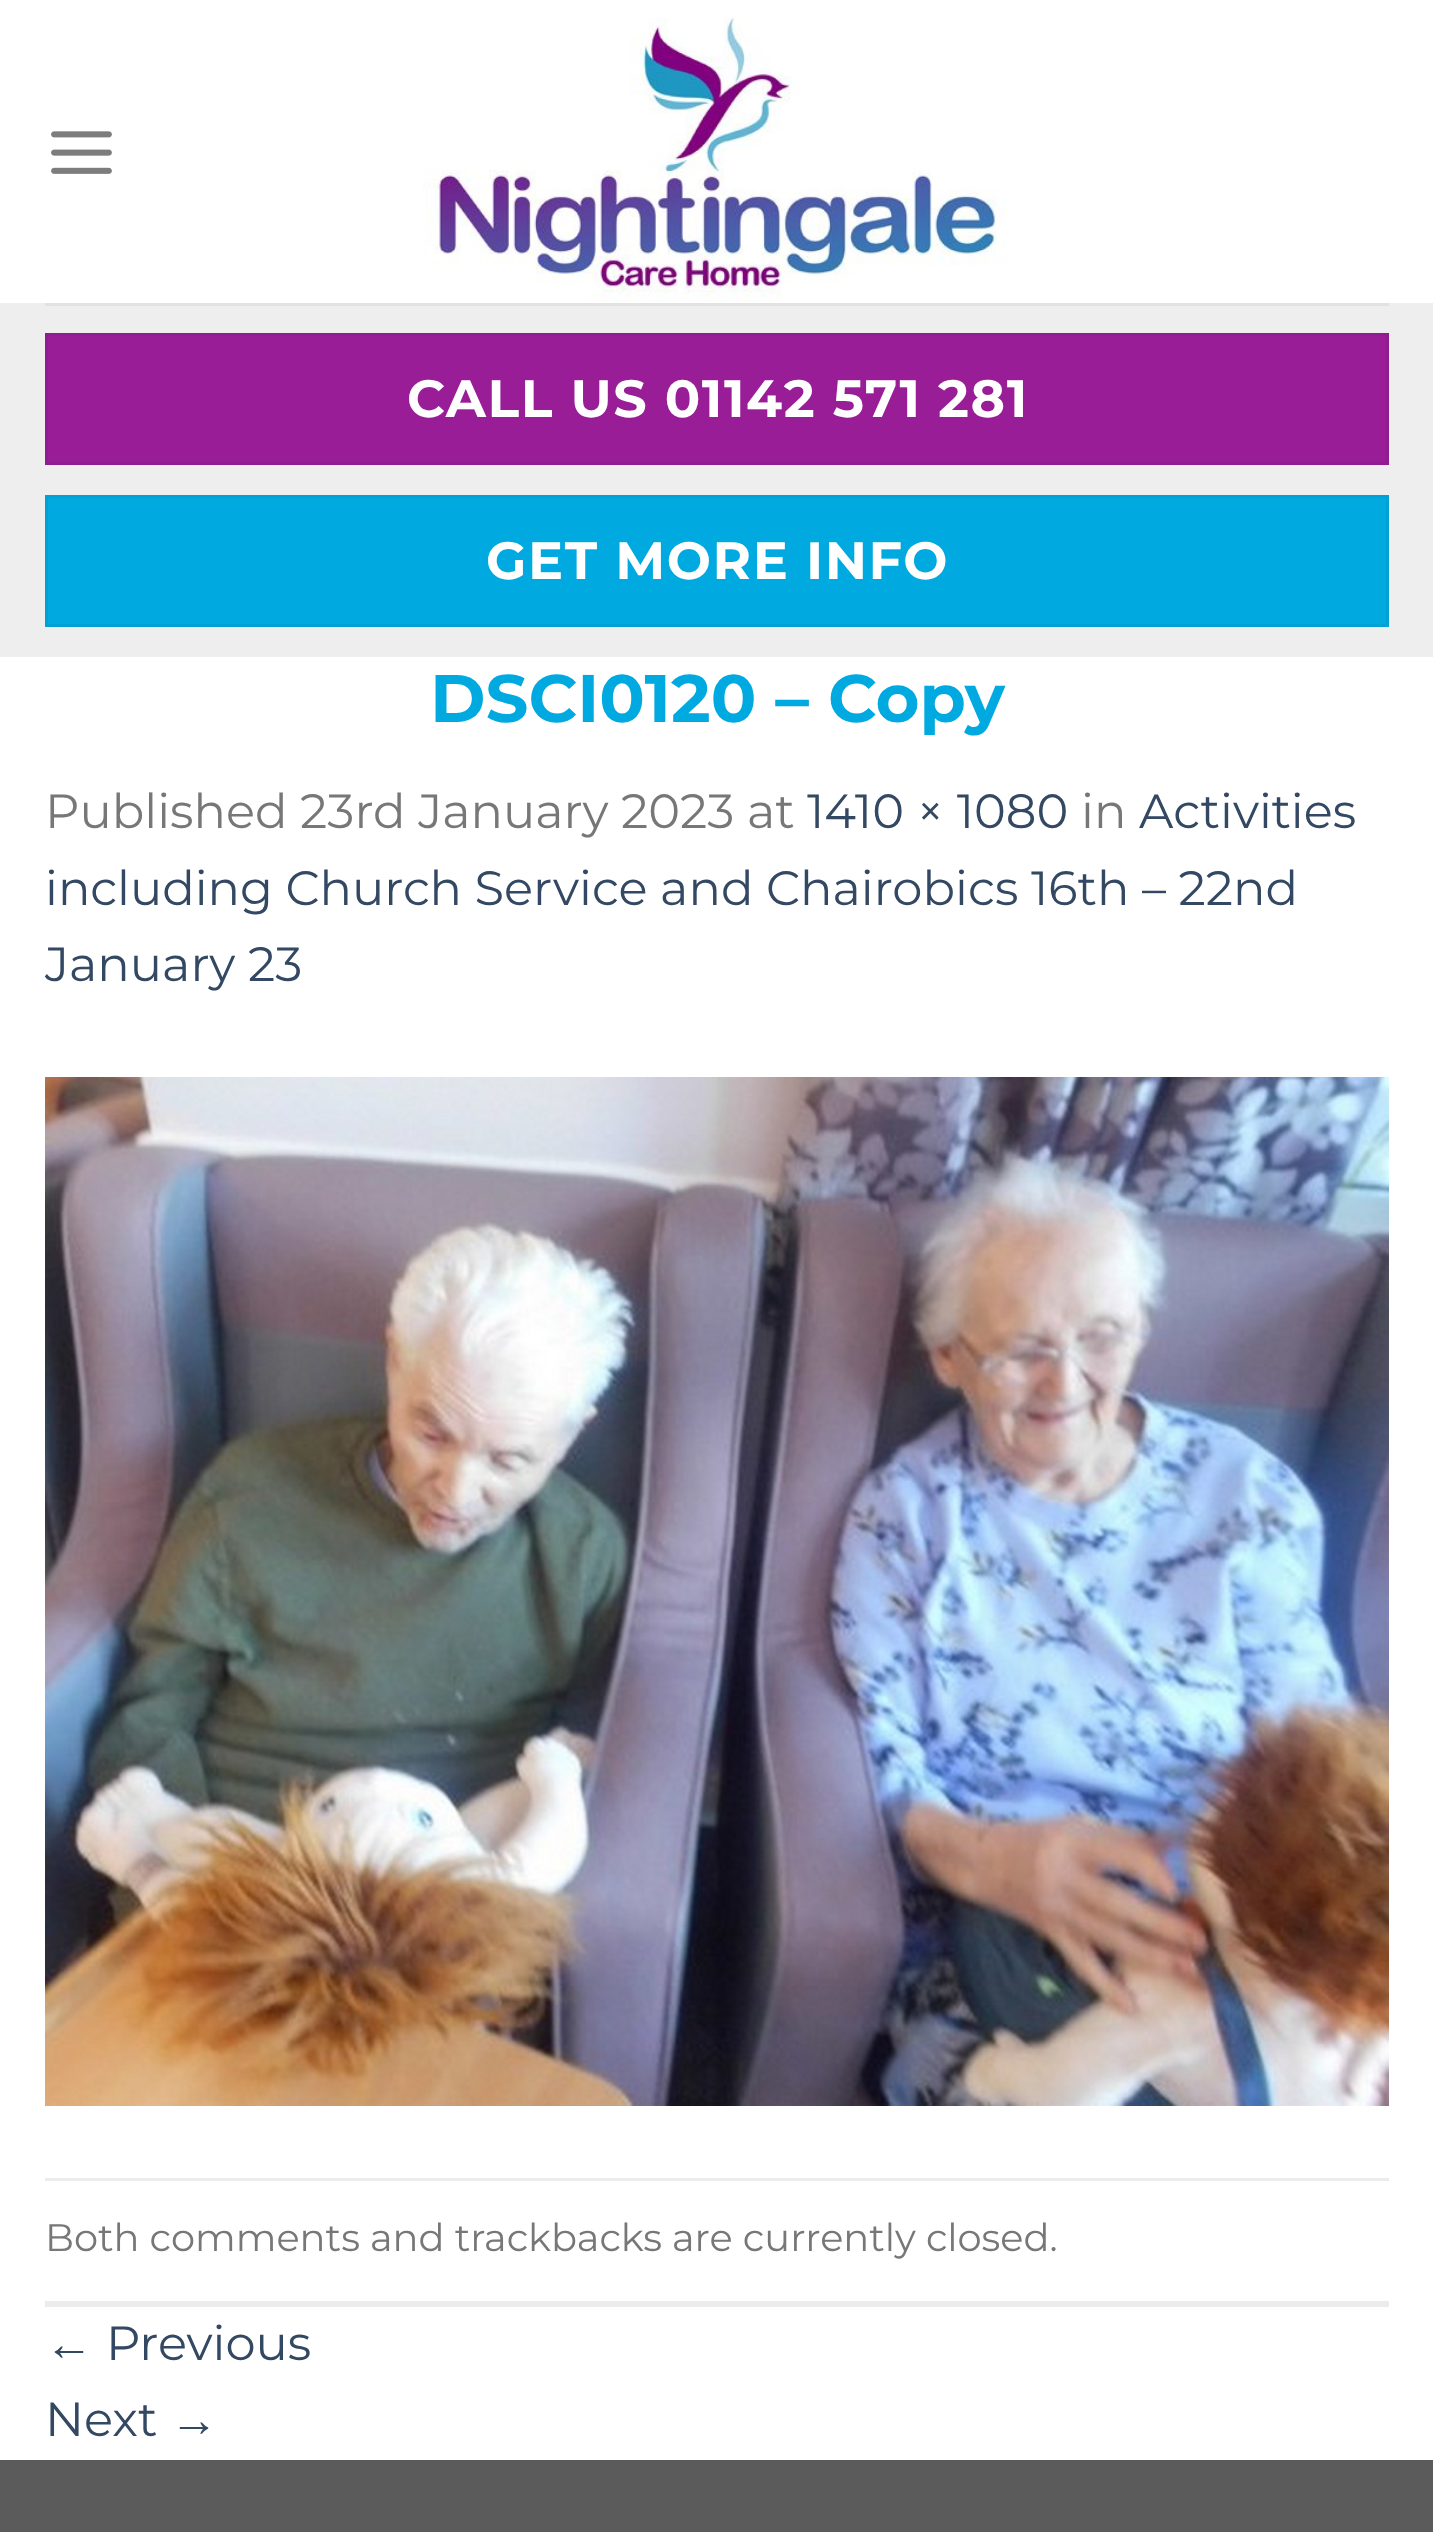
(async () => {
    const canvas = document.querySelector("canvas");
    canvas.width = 1433;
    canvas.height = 2532;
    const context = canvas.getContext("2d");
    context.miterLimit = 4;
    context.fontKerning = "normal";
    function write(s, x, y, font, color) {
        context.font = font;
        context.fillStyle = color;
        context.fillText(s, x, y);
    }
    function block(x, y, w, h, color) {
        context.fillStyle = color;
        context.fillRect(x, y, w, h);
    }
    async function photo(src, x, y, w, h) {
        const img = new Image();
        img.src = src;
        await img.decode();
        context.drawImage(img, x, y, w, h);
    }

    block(0, 0, 1433, 2532, "rgb(255, 255, 255)");
    await photo("media/1.png", 51, 131, 61, 43);
    await photo("media/2.png", 423, 17, 584, 285);
    block(0, 303, 1433, 354, "rgb(238, 238, 238)");
    block(45, 303, 1344, 3, "rgb(226, 226, 226)");
    context.fillStyle = "rgb(152, 29, 151)";
    context.beginPath();
    context.rect(46.5, 334.5, 1341, 129);
    context.fill();
    context.strokeStyle = "rgb(144, 28, 143)";
    context.lineWidth = 3;
    context.stroke();
    context.letterSpacing = "1.6px";
    write("CALL US 01142 571 281", 407, 417, "bold 52.4px Montserrat", "rgb(255, 255, 255)");
    context.fillStyle = "rgb(0, 169, 224)";
    context.beginPath();
    context.rect(46.5, 496.5, 1341, 129);
    context.fill();
    context.strokeStyle = "rgb(0, 161, 213)";
    context.stroke();
    write("GET MORE INFO", 486, 579, "bold 52.4px Montserrat", "rgb(255, 255, 255)");
    context.letterSpacing = "0px";
    write("DSCI0120 – Copy", 430, 722, "bold 67.25px Montserrat", "rgb(0, 169, 224)");
    write("Published 23rd January 2023 at", 45, 828, "48px Montserrat", "rgb(119, 119, 119)");
    write("1410 × 1080", 807, 828, "48px Montserrat", "rgb(51, 72, 98)");
    write("in", 1081, 828, "48px Montserrat", "rgb(119, 119, 119)");
    write("Activities", 1139, 828, "48px Montserrat", "rgb(51, 72, 98)");
    write("including Church Service and Chairobics 16th – 22nd", 45, 905, "48px Montserrat", "rgb(51, 72, 98)");
    write("January 23", 45, 981, "48px Montserrat", "rgb(51, 72, 98)");
    await photo("media/3.png", 45, 1077, 1344, 1029);
    block(45, 2178, 1344, 3, "rgb(236, 236, 236)");
    block(45, 2301, 1344, 6, "rgb(236, 236, 236)");
    write("Both comments and trackbacks are currently closed.", 45, 2251, "38.4px Montserrat", "rgb(119, 119, 119)");
    write("←", 45, 2360, "48px Liberation Sans", "rgb(51, 72, 98)");
    write("Previous", 106, 2360, "48px Montserrat", "rgb(51, 72, 98)");
    write("Next", 45, 2436, "48px Montserrat", "rgb(51, 72, 98)");
    write("→", 170, 2436, "48px Liberation Sans", "rgb(51, 72, 98)");
    block(0, 2460, 1433, 72, "rgb(91, 91, 91)");
})();
